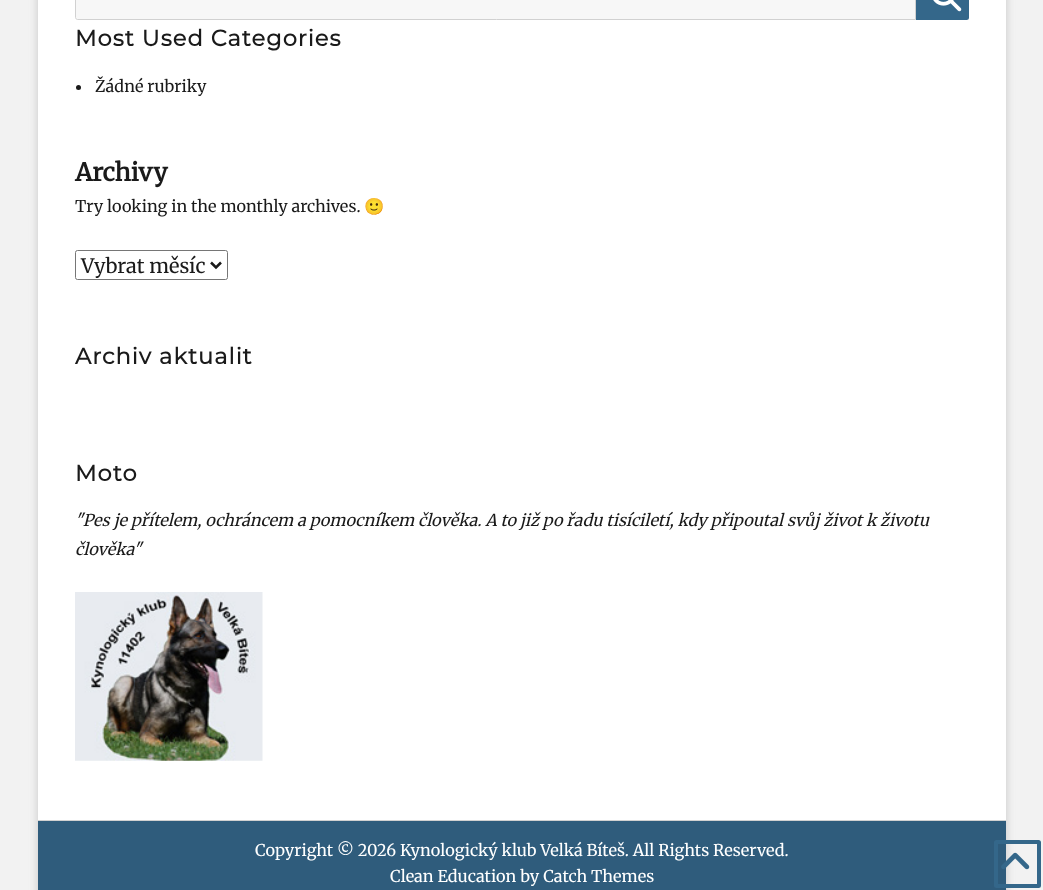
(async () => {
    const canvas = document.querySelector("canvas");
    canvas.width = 1043;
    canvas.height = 890;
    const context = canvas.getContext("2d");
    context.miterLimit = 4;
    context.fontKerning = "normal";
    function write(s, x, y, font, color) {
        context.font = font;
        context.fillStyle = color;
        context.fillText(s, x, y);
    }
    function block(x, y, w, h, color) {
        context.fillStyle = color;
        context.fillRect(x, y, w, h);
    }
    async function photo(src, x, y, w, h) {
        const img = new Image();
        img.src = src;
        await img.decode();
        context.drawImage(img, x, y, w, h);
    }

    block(0, 0, 1043, 890, "rgb(242, 242, 242)");
    context.fillStyle = "rgba(100, 100, 100, 0.3)";
    context.filter = "blur(4px)";
    context.beginPath();
    context.roundRect(38, -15, 968, 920, 2.5);
    context.fill();
    context.filter = "none";
    block(38, 0, 968, 820, "rgb(255, 255, 255)");
    block(38, 820, 968, 1, "rgb(209, 209, 209)");
    context.fillStyle = "rgb(247, 247, 247)";
    context.beginPath();
    context.moveTo(77.5, -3.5);
    context.lineTo(915.5, -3.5);
    context.lineTo(915.5, 19.5);
    context.lineTo(77.5, 19.5);
    context.bezierCurveTo(76.5, 19.5, 75.5, 18.5, 75.5, 17.5);
    context.lineTo(75.5, -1.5);
    context.bezierCurveTo(75.5, -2.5, 76.5, -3.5, 77.5, -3.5);
    context.closePath();
    context.fill();
    context.strokeStyle = "rgb(209, 209, 209)";
    context.stroke();
    context.fillStyle = "rgb(52, 103, 138)";
    context.beginPath();
    context.moveTo(917.5, -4.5);
    context.lineTo(966.5, -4.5);
    context.bezierCurveTo(967, -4.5, 967.5, -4, 967.5, -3.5);
    context.lineTo(967.5, 17.5);
    context.bezierCurveTo(967.5, 18, 967, 18.5, 966.5, 18.5);
    context.lineTo(917.5, 18.5);
    context.closePath();
    context.fill();
    context.strokeStyle = "rgb(52, 103, 138)";
    context.lineWidth = 3;
    context.stroke();
    await photo("media/1.png", 933, 0, 29, 12);
    context.letterSpacing = "1.05px";
    write("Most Used Categories", 75, 46, "bold 22.5px Montserrat", "rgb(26, 26, 26)");
    context.beginPath();
    context.arc(78.5, 87.5, 2.5, 0, Math.PI * 2);
    context.fill();
    context.letterSpacing = "0px";
    write("Žádné rubriky", 95, 92, "300 16.25px Merriweather", "rgb(26, 26, 26)");
    write("Archivy", 75, 181, "bold 24.5px Merriweather", "rgb(26, 26, 26)");
    write("Try looking in the monthly archives.", 75, 212, "300 16.25px Merriweather", "rgb(26, 26, 26)");
    write("🙂", 364, 212, "16.25px Noto Color Emoji", "rgb(26, 26, 26)");
    context.beginPath();
    context.roundRect(75.5, 250.5, 152, 29, 2);
    context.strokeStyle = "rgb(118, 118, 118)";
    context.lineWidth = 1;
    context.stroke();
    context.beginPath();
    context.moveTo(211, 262.5);
    context.lineTo(216, 267.5);
    context.lineTo(221, 262.5);
    context.strokeStyle = "rgb(26, 26, 26)";
    context.lineWidth = 2.5;
    context.stroke();
    write("Vybrat měsíc", 81, 273, "300 20px Merriweather", "rgb(26, 26, 26)");
    context.letterSpacing = "1.05px";
    write("Archiv aktualit", 75, 364, "bold 22.5px Montserrat", "rgb(26, 26, 26)");
    write("Moto", 75, 481, "bold 22.5px Montserrat", "rgb(26, 26, 26)");
    context.letterSpacing = "0px";
    write("\"Pes je přítelem, ochráncem a pomocníkem člověka. A to již po řadu tisíciletí, kdy připoutal svůj život k životu", 75, 526, "italic 300 16.25px Merriweather", "rgb(26, 26, 26)");
    write("člověka\"", 75, 555, "italic 300 16.25px Merriweather", "rgb(26, 26, 26)");
    await photo("media/2.png", 75, 592, 188, 169);
    block(38, 821, 968, 69, "rgb(47, 92, 124)");
    write("Copyright © 2026 Kynologický klub Velká Bíteš. All Rights Reserved.", 255, 856, "300 16.25px Merriweather", "rgb(255, 255, 255)");
    write("Clean Education by Catch Themes", 390, 882, "300 16.25px Merriweather", "rgb(255, 255, 255)");
    context.beginPath();
    context.roundRect(996, 842, 43, 44, 0.5);
    context.strokeStyle = "rgb(52, 103, 138)";
    context.lineWidth = 4;
    context.stroke();
    await photo("media/3.png", 1001, 852, 29, 18);
})();
